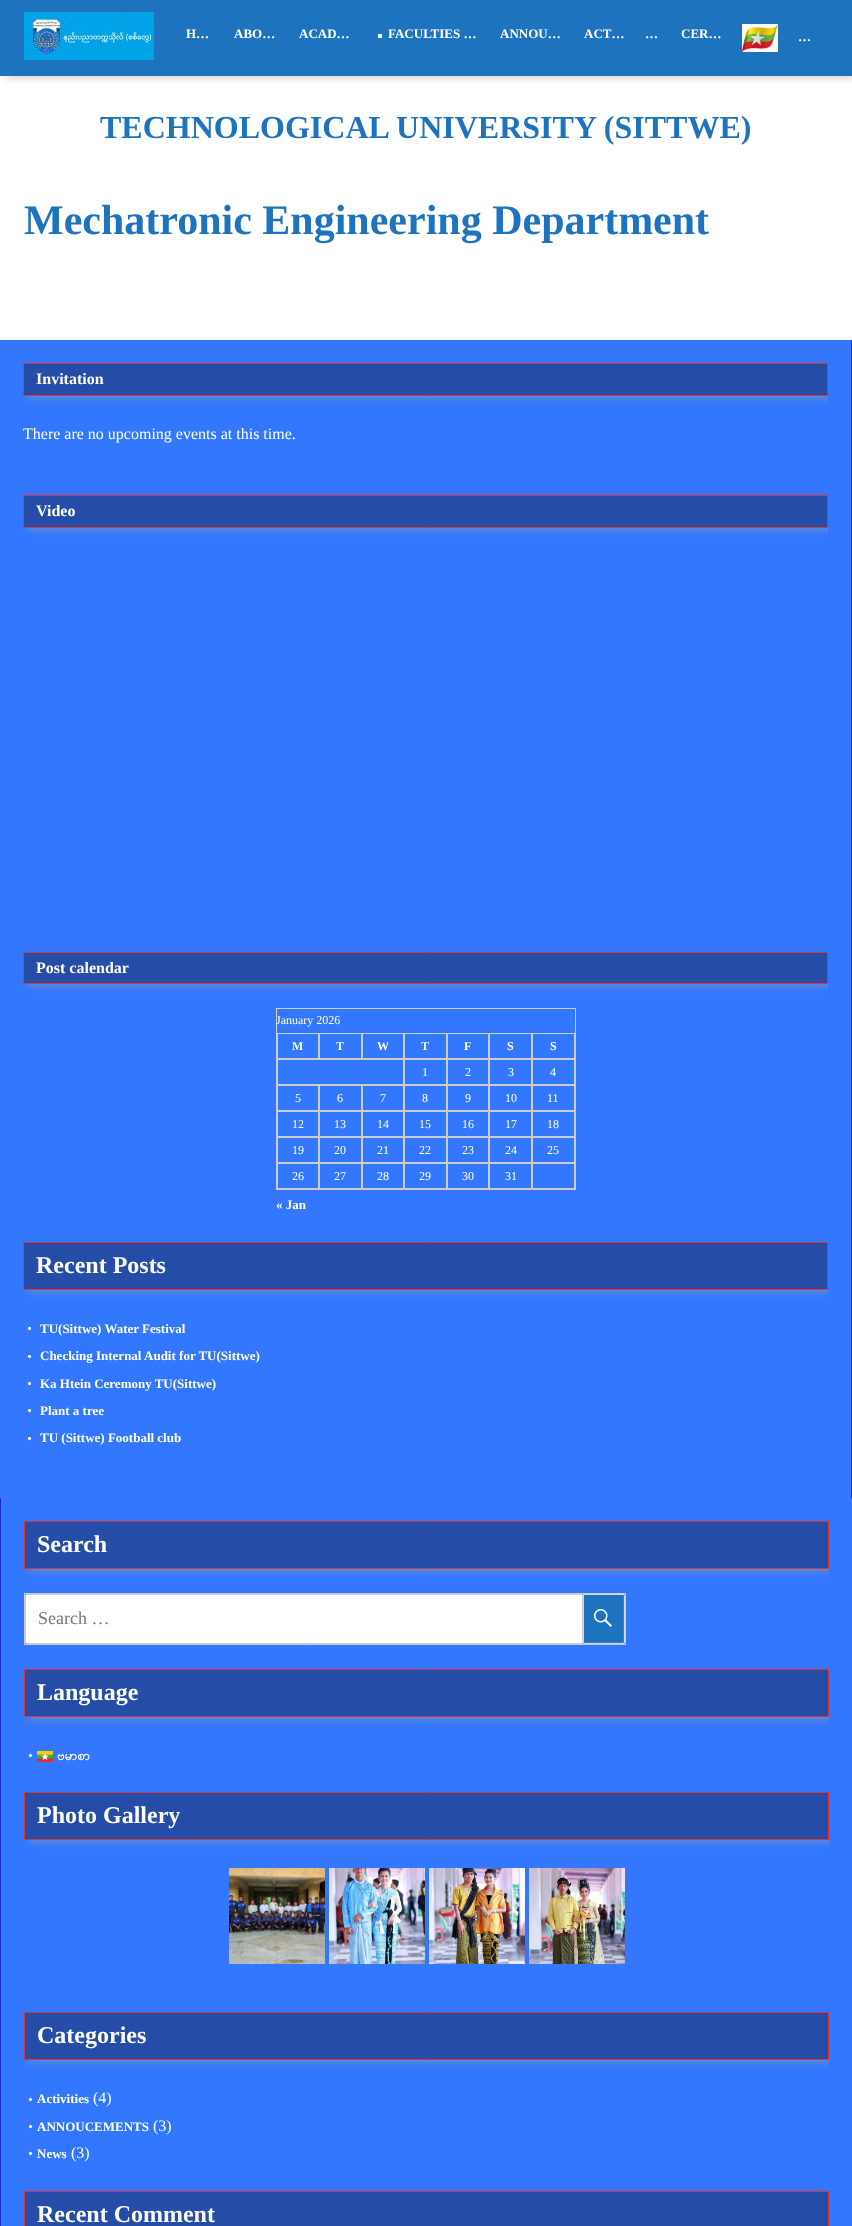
(async () => {
    const canvas = document.querySelector("canvas");
    canvas.width = 852;
    canvas.height = 2226;
    const context = canvas.getContext("2d");
    context.miterLimit = 4;
    context.fontKerning = "normal";
    function write(s, x, y, font, color) {
        context.font = font;
        context.fillStyle = color;
        context.fillText(s, x, y);
    }
    function block(x, y, w, h, color) {
        context.fillStyle = color;
        context.fillRect(x, y, w, h);
    }
    async function photo(src, x, y, w, h) {
        const img = new Image();
        img.src = src;
        await img.decode();
        context.drawImage(img, x, y, w, h);
    }

    block(0, 0, 852, 2226, "rgb(30, 115, 190)");
    block(0, 76, 852, 264, "rgb(255, 255, 255)");
    context.save();
    context.beginPath();
    context.rect(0, 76, 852, 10);
    context.clip();
    context.fillStyle = "rgba(165, 165, 165, 0.6)";
    context.filter = "blur(5px)";
    context.beginPath();
    context.rect(5, 1, 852, 76);
    context.fill();
    context.filter = "none";
    context.restore();
    await photo("media/1.png", 24, 12, 130, 48);
    write("H…", 186, 38, "bold 13px Liberation Serif", "rgb(255, 255, 255)");
    write("ABO…", 234, 38, "bold 13px Liberation Serif", "rgb(255, 255, 255)");
    write("ACAD…", 299, 38, "bold 13px Liberation Serif", "rgb(255, 255, 255)");
    block(378, 34, 4, 4, "rgb(255, 255, 255)");
    write("FACULTIES …", 388, 38, "bold 13px Liberation Serif", "rgb(255, 255, 255)");
    write("ANNOU…", 500, 38, "bold 13px Liberation Serif", "rgb(255, 255, 255)");
    write("ACT…", 584, 38, "bold 13px Liberation Serif", "rgb(255, 255, 255)");
    write("…", 645, 38, "bold 13px Liberation Serif", "rgb(255, 255, 255)");
    write("CER…", 681, 38, "bold 13px Liberation Serif", "rgb(255, 255, 255)");
    await photo("media/2.png", 742, 24, 36, 28);
    write("…", 798, 41, "bold 13px Liberation Serif", "rgb(255, 255, 255)");
    write("TECHNOLOGICAL UNIVERSITY (SITTWE)", 100, 138, "bold 32px Liberation Serif", "rgb(30, 115, 190)");
    write("Mechatronic Engineering Department", 24, 234, "bold 42px Liberation Serif", "rgb(30, 115, 190)");
    block(0, 340, 851, 1158, "rgb(51, 119, 255)");
    block(851, 340, 1, 1158, "rgb(33, 42, 209)");
    context.save();
    context.beginPath();
    context.rect(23, 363, 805, 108);
    context.clip();
    context.fillStyle = "rgba(165, 165, 165, 0.6)";
    context.filter = "blur(5px)";
    context.beginPath();
    context.rect(28, 364, 805, 33);
    context.fill();
    context.filter = "none";
    context.restore();
    context.fillStyle = "rgb(37, 77, 167)";
    context.beginPath();
    context.rect(23.5, 363.5, 804, 32);
    context.fill();
    context.strokeStyle = "rgb(221, 51, 51)";
    context.stroke();
    write("Invitation", 36, 384, "bold 16px Liberation Serif", "rgb(255, 255, 255)");
    write("There are no upcoming events at this time.", 23, 439, "16px Liberation Serif", "rgb(255, 255, 255)");
    context.save();
    context.beginPath();
    context.rect(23, 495, 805, 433);
    context.clip();
    context.fillStyle = "rgba(165, 165, 165, 0.6)";
    context.filter = "blur(5px)";
    context.beginPath();
    context.rect(28, 496, 805, 33);
    context.fill();
    context.filter = "none";
    context.restore();
    context.fillStyle = "rgb(37, 77, 167)";
    context.beginPath();
    context.rect(23.5, 495.5, 804, 32);
    context.fill();
    context.stroke();
    write("Video", 36, 516, "bold 16px Liberation Serif", "rgb(255, 255, 255)");
    context.save();
    context.beginPath();
    context.rect(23, 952, 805, 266);
    context.clip();
    context.fillStyle = "rgba(165, 165, 165, 0.6)";
    context.filter = "blur(5px)";
    context.beginPath();
    context.rect(28, 953, 805, 32);
    context.fill();
    context.filter = "none";
    context.restore();
    context.fillStyle = "rgb(37, 77, 167)";
    context.beginPath();
    context.rect(23.5, 952.5, 804, 31);
    context.fill();
    context.stroke();
    write("Post calendar", 36, 973, "bold 16px Liberation Serif", "rgb(255, 255, 255)");
    context.strokeStyle = "rgb(204, 204, 204)";
    context.strokeRect(276.5, 1008.5, 299, 181);
    write("January 2026", 276, 1024, "12px Liberation Serif", "rgb(255, 255, 255)");
    context.strokeRect(277.5, 1033.5, 41, 25);
    write("M", 292, 1050, "bold 12px Liberation Serif", "rgb(255, 255, 255)");
    context.strokeRect(319.5, 1033.5, 42, 25);
    write("T", 336, 1050, "bold 12px Liberation Serif", "rgb(255, 255, 255)");
    context.strokeRect(362.5, 1033.5, 41, 25);
    write("W", 377, 1050, "bold 12px Liberation Serif", "rgb(255, 255, 255)");
    context.strokeRect(404.5, 1033.5, 42, 25);
    write("T", 421, 1050, "bold 12px Liberation Serif", "rgb(255, 255, 255)");
    context.strokeRect(447.5, 1033.5, 41, 25);
    write("F", 464, 1050, "bold 12px Liberation Serif", "rgb(255, 255, 255)");
    context.strokeRect(489.5, 1033.5, 42, 25);
    write("S", 507, 1050, "bold 12px Liberation Serif", "rgb(255, 255, 255)");
    context.strokeRect(532.5, 1033.5, 42, 25);
    write("S", 550, 1050, "bold 12px Liberation Serif", "rgb(255, 255, 255)");
    context.strokeRect(277.5, 1059.5, 126, 25);
    context.strokeRect(404.5, 1059.5, 42, 25);
    write("1", 422, 1076, "12px Liberation Serif", "rgb(255, 255, 255)");
    context.strokeRect(447.5, 1059.5, 41, 25);
    write("2", 465, 1076, "12px Liberation Serif", "rgb(255, 255, 255)");
    context.strokeRect(489.5, 1059.5, 42, 25);
    write("3", 508, 1076, "12px Liberation Serif", "rgb(255, 255, 255)");
    context.strokeRect(532.5, 1059.5, 42, 25);
    write("4", 550, 1076, "12px Liberation Serif", "rgb(255, 255, 255)");
    context.strokeRect(277.5, 1085.5, 41, 25);
    write("5", 295, 1102, "12px Liberation Serif", "rgb(255, 255, 255)");
    context.strokeRect(319.5, 1085.5, 42, 25);
    write("6", 337, 1102, "12px Liberation Serif", "rgb(255, 255, 255)");
    context.strokeRect(362.5, 1085.5, 41, 25);
    write("7", 380, 1102, "12px Liberation Serif", "rgb(255, 255, 255)");
    context.strokeRect(404.5, 1085.5, 42, 25);
    write("8", 422, 1102, "12px Liberation Serif", "rgb(255, 255, 255)");
    context.strokeRect(447.5, 1085.5, 41, 25);
    write("9", 465, 1102, "12px Liberation Serif", "rgb(255, 255, 255)");
    context.strokeRect(489.5, 1085.5, 42, 25);
    write("10", 505, 1102, "12px Liberation Serif", "rgb(255, 255, 255)");
    context.strokeRect(532.5, 1085.5, 42, 25);
    write("11", 547, 1102, "12px Liberation Serif", "rgb(255, 255, 255)");
    context.strokeRect(277.5, 1111.5, 41, 25);
    write("12", 292, 1128, "12px Liberation Serif", "rgb(255, 255, 255)");
    context.strokeRect(319.5, 1111.5, 42, 25);
    write("13", 334, 1128, "12px Liberation Serif", "rgb(255, 255, 255)");
    context.strokeRect(362.5, 1111.5, 41, 25);
    write("14", 377, 1128, "12px Liberation Serif", "rgb(255, 255, 255)");
    context.strokeRect(404.5, 1111.5, 42, 25);
    write("15", 419, 1128, "12px Liberation Serif", "rgb(255, 255, 255)");
    context.strokeRect(447.5, 1111.5, 41, 25);
    write("16", 462, 1128, "12px Liberation Serif", "rgb(255, 255, 255)");
    context.strokeRect(489.5, 1111.5, 42, 25);
    write("17", 505, 1128, "12px Liberation Serif", "rgb(255, 255, 255)");
    context.strokeRect(532.5, 1111.5, 42, 25);
    write("18", 547, 1128, "12px Liberation Serif", "rgb(255, 255, 255)");
    context.strokeRect(277.5, 1137.5, 41, 25);
    write("19", 292, 1154, "12px Liberation Serif", "rgb(255, 255, 255)");
    context.strokeRect(319.5, 1137.5, 42, 25);
    write("20", 334, 1154, "12px Liberation Serif", "rgb(255, 255, 255)");
    context.strokeRect(362.5, 1137.5, 41, 25);
    write("21", 377, 1154, "12px Liberation Serif", "rgb(255, 255, 255)");
    context.strokeRect(404.5, 1137.5, 42, 25);
    write("22", 419, 1154, "12px Liberation Serif", "rgb(255, 255, 255)");
    context.strokeRect(447.5, 1137.5, 41, 25);
    write("23", 462, 1154, "12px Liberation Serif", "rgb(255, 255, 255)");
    context.strokeRect(489.5, 1137.5, 42, 25);
    write("24", 505, 1154, "12px Liberation Serif", "rgb(255, 255, 255)");
    context.strokeRect(532.5, 1137.5, 42, 25);
    write("25", 547, 1154, "12px Liberation Serif", "rgb(255, 255, 255)");
    context.strokeRect(277.5, 1163.5, 41, 25);
    write("26", 292, 1180, "12px Liberation Serif", "rgb(255, 255, 255)");
    context.strokeRect(319.5, 1163.5, 42, 25);
    write("27", 334, 1180, "12px Liberation Serif", "rgb(255, 255, 255)");
    context.strokeRect(362.5, 1163.5, 41, 25);
    write("28", 377, 1180, "12px Liberation Serif", "rgb(255, 255, 255)");
    context.strokeRect(404.5, 1163.5, 42, 25);
    write("29", 419, 1180, "12px Liberation Serif", "rgb(255, 255, 255)");
    context.strokeRect(447.5, 1163.5, 41, 25);
    write("30", 462, 1180, "12px Liberation Serif", "rgb(255, 255, 255)");
    context.strokeRect(489.5, 1163.5, 42, 25);
    write("31", 505, 1180, "12px Liberation Serif", "rgb(255, 255, 255)");
    context.strokeRect(532.5, 1163.5, 42, 25);
    write("« Jan", 276, 1209, "bold 13px Liberation Serif", "rgb(255, 255, 255)");
    context.save();
    context.beginPath();
    context.rect(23, 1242, 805, 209);
    context.clip();
    context.fillStyle = "rgba(165, 165, 165, 0.6)";
    context.filter = "blur(5px)";
    context.beginPath();
    context.rect(28, 1243, 805, 48);
    context.fill();
    context.filter = "none";
    context.restore();
    context.fillStyle = "rgb(37, 77, 167)";
    context.beginPath();
    context.rect(23.5, 1242.5, 804, 47);
    context.fill();
    context.strokeStyle = "rgb(221, 51, 51)";
    context.stroke();
    write("Recent Posts", 36, 1273, "bold 24px Liberation Serif", "rgb(255, 255, 255)");
    await photo("media/3.png", 27, 1326, 5, 5);
    write("TU(Sittwe) Water Festival", 40, 1333, "bold 13px Liberation Serif", "rgb(255, 255, 255)");
    await photo("media/3.png", 27, 1354, 5, 5);
    write("Checking Internal Audit for TU(Sittwe)", 40, 1360, "bold 13px Liberation Serif", "rgb(255, 255, 255)");
    await photo("media/3.png", 27, 1381, 5, 5);
    write("Ka Htein Ceremony TU(Sittwe)", 40, 1388, "bold 13px Liberation Serif", "rgb(255, 255, 255)");
    await photo("media/3.png", 27, 1408, 5, 5);
    write("Plant a tree", 40, 1415, "bold 13px Liberation Serif", "rgb(255, 255, 255)");
    await photo("media/3.png", 27, 1436, 5, 5);
    write("TU (Sittwe) Football club", 40, 1442, "bold 13px Liberation Serif", "rgb(255, 255, 255)");
    block(1, 1498, 851, 728, "rgb(51, 119, 255)");
    block(0, 1498, 1, 728, "rgb(33, 42, 209)");
    context.save();
    context.beginPath();
    context.rect(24, 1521, 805, 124);
    context.clip();
    context.fillStyle = "rgba(165, 165, 165, 0.6)";
    context.filter = "blur(5px)";
    context.beginPath();
    context.rect(29, 1522, 805, 48);
    context.fill();
    context.filter = "none";
    context.restore();
    context.fillStyle = "rgb(37, 77, 167)";
    context.beginPath();
    context.rect(24.5, 1521.5, 804, 47);
    context.fill();
    context.stroke();
    write("Search", 37, 1552, "bold 24px Liberation Serif", "rgb(255, 255, 255)");
    context.strokeStyle = "rgb(204, 204, 204)";
    context.strokeRect(24.5, 1593.5, 601, 51);
    block(584, 1595, 39, 47, "rgb(30, 115, 190)");
    await photo("media/4.png", 594, 1609, 18, 18);
    context.beginPath();
    context.roundRect(583.5, 1594.5, 41, 49, [0, 1.5, 1.5, 0]);
    context.strokeStyle = "rgb(215, 218, 218)";
    context.stroke();
    context.fillStyle = "rgb(255, 255, 255)";
    context.beginPath();
    context.roundRect(25.5, 1594.5, 557, 49, [1.5, 0, 0, 1.5]);
    context.fill();
    context.strokeStyle = "rgb(204, 204, 204)";
    context.stroke();
    write("Search …", 38, 1624, "18px Liberation Serif", "rgb(117, 117, 117)");
    context.save();
    context.beginPath();
    context.rect(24, 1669, 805, 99);
    context.clip();
    context.fillStyle = "rgba(165, 165, 165, 0.6)";
    context.filter = "blur(5px)";
    context.beginPath();
    context.rect(29, 1670, 805, 48);
    context.fill();
    context.filter = "none";
    context.restore();
    context.fillStyle = "rgb(37, 77, 167)";
    context.beginPath();
    context.rect(24.5, 1669.5, 804, 47);
    context.fill();
    context.strokeStyle = "rgb(221, 51, 51)";
    context.stroke();
    write("Language", 37, 1700, "bold 24px Liberation Serif", "rgb(255, 255, 255)");
    await photo("media/3.png", 28, 1753, 5, 5);
    await photo("media/5.png", 37, 1751, 16, 11);
    write("ဗမာစာ", 57, 1760, "bold 13px Padauk", "rgb(255, 255, 255)");
    context.save();
    context.beginPath();
    context.rect(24, 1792, 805, 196);
    context.clip();
    context.fillStyle = "rgba(165, 165, 165, 0.6)";
    context.filter = "blur(5px)";
    context.beginPath();
    context.rect(29, 1793, 805, 48);
    context.fill();
    context.filter = "none";
    context.restore();
    context.fillStyle = "rgb(37, 77, 167)";
    context.beginPath();
    context.rect(24.5, 1792.5, 804, 47);
    context.fill();
    context.stroke();
    write("Photo Gallery", 37, 1823, "bold 24px Liberation Serif", "rgb(255, 255, 255)");
    await photo("media/6.png", 229, 1868, 96, 96);
    write("sport17", 251, 1921, "bold 16px Liberation Serif", "rgb(69, 68, 92)");
    await photo("media/7.png", 329, 1868, 96, 96);
    write("5", 373, 1921, "bold 16px Liberation Serif", "rgb(95, 162, 219)");
    await photo("media/8.png", 429, 1868, 96, 96);
    write("4", 473, 1921, "bold 16px Liberation Serif", "rgb(148, 94, 73)");
    await photo("media/9.png", 529, 1868, 96, 96);
    write("2", 573, 1921, "bold 16px Liberation Serif", "rgb(189, 150, 91)");
    context.save();
    context.beginPath();
    context.rect(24, 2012, 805, 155);
    context.clip();
    context.fillStyle = "rgba(165, 165, 165, 0.6)";
    context.filter = "blur(5px)";
    context.beginPath();
    context.rect(29, 2013, 805, 48);
    context.fill();
    context.filter = "none";
    context.restore();
    context.fillStyle = "rgb(37, 77, 167)";
    context.beginPath();
    context.rect(24.5, 2012.5, 804, 47);
    context.fill();
    context.stroke();
    write("Categories", 37, 2043, "bold 24px Liberation Serif", "rgb(255, 255, 255)");
    await photo("media/3.png", 28, 2097, 5, 5);
    write("Activities", 37, 2103, "bold 13px Liberation Serif", "rgb(255, 255, 255)");
    write("(4)", 93, 2103, "16px Liberation Serif", "rgb(255, 255, 255)");
    await photo("media/3.png", 28, 2124, 5, 5);
    write("ANNOUCEMENTS", 37, 2131, "bold 13px Liberation Serif", "rgb(255, 255, 255)");
    write("(3)", 153, 2131, "16px Liberation Serif", "rgb(255, 255, 255)");
    await photo("media/3.png", 28, 2151, 5, 5);
    write("News", 37, 2158, "bold 13px Liberation Serif", "rgb(255, 255, 255)");
    write("(3)", 71, 2158, "16px Liberation Serif", "rgb(255, 255, 255)");
    context.fillStyle = "rgb(37, 77, 167)";
    context.beginPath();
    context.rect(24.5, 2191.5, 804, 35);
    context.fill();
    context.stroke();
    write("Recent Comment", 37, 2222, "bold 24px Liberation Serif", "rgb(255, 255, 255)");
})();
